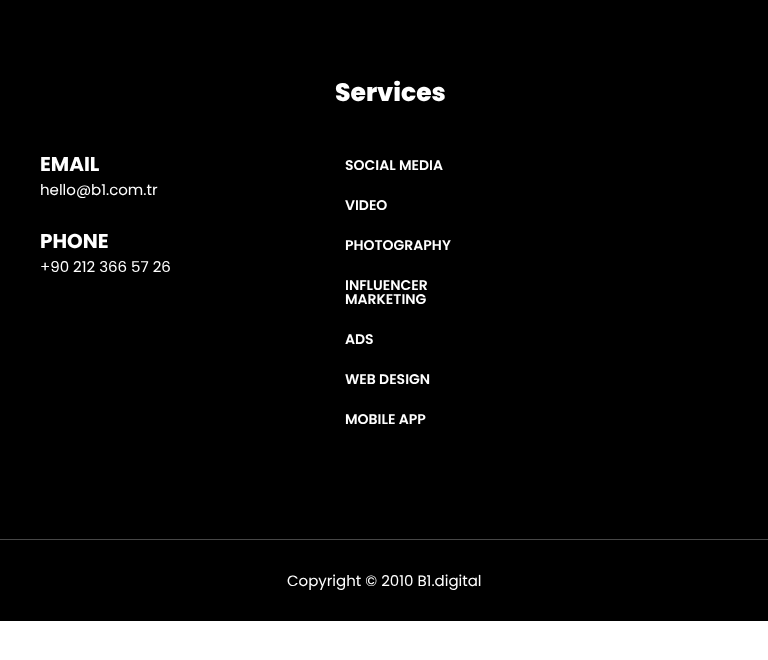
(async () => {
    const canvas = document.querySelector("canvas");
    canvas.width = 768;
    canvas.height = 660;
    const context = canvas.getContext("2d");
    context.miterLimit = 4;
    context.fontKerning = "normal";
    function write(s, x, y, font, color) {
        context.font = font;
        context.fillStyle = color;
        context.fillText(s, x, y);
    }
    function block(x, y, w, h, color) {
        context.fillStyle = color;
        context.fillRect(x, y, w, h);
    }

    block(0, 0, 768, 660, "rgb(255, 255, 255)");
    block(0, 0, 768, 539, "rgb(0, 0, 0)");
    write("EMAIL", 40, 171, "bold 20px Poppins", "rgb(255, 255, 255)");
    write("hello@b1.com.tr", 40, 195, "15px Poppins", "rgb(255, 255, 255)");
    write("PHONE", 40, 248, "bold 20px Poppins", "rgb(255, 255, 255)");
    write("+90 212 366 57 26", 40, 272, "15px Poppins", "rgb(255, 255, 255)");
    write("Services", 335, 101, "800 25px Poppins", "rgb(255, 255, 255)");
    write("SOCIAL MEDIA", 345, 170, "600 14px Poppins", "rgb(255, 255, 255)");
    write("VIDEO", 345, 210, "600 14px Poppins", "rgb(255, 255, 255)");
    write("PHOTOGRAPHY", 345, 250, "600 14px Poppins", "rgb(255, 255, 255)");
    write("INFLUENCER", 345, 290, "600 14px Poppins", "rgb(255, 255, 255)");
    write("MARKETING", 345, 304, "600 14px Poppins", "rgb(255, 255, 255)");
    write("ADS", 345, 344, "600 14px Poppins", "rgb(255, 255, 255)");
    write("WEB DESIGN", 345, 384, "600 14px Poppins", "rgb(255, 255, 255)");
    write("MOBILE APP", 345, 424, "600 14px Poppins", "rgb(255, 255, 255)");
    block(0, 540, 768, 81, "rgb(0, 0, 0)");
    block(0, 539, 768, 1, "rgb(71, 71, 71)");
    write("Copyright © 2010 B1.digital", 287, 586, "15px Poppins", "rgb(255, 255, 255)");
})();
